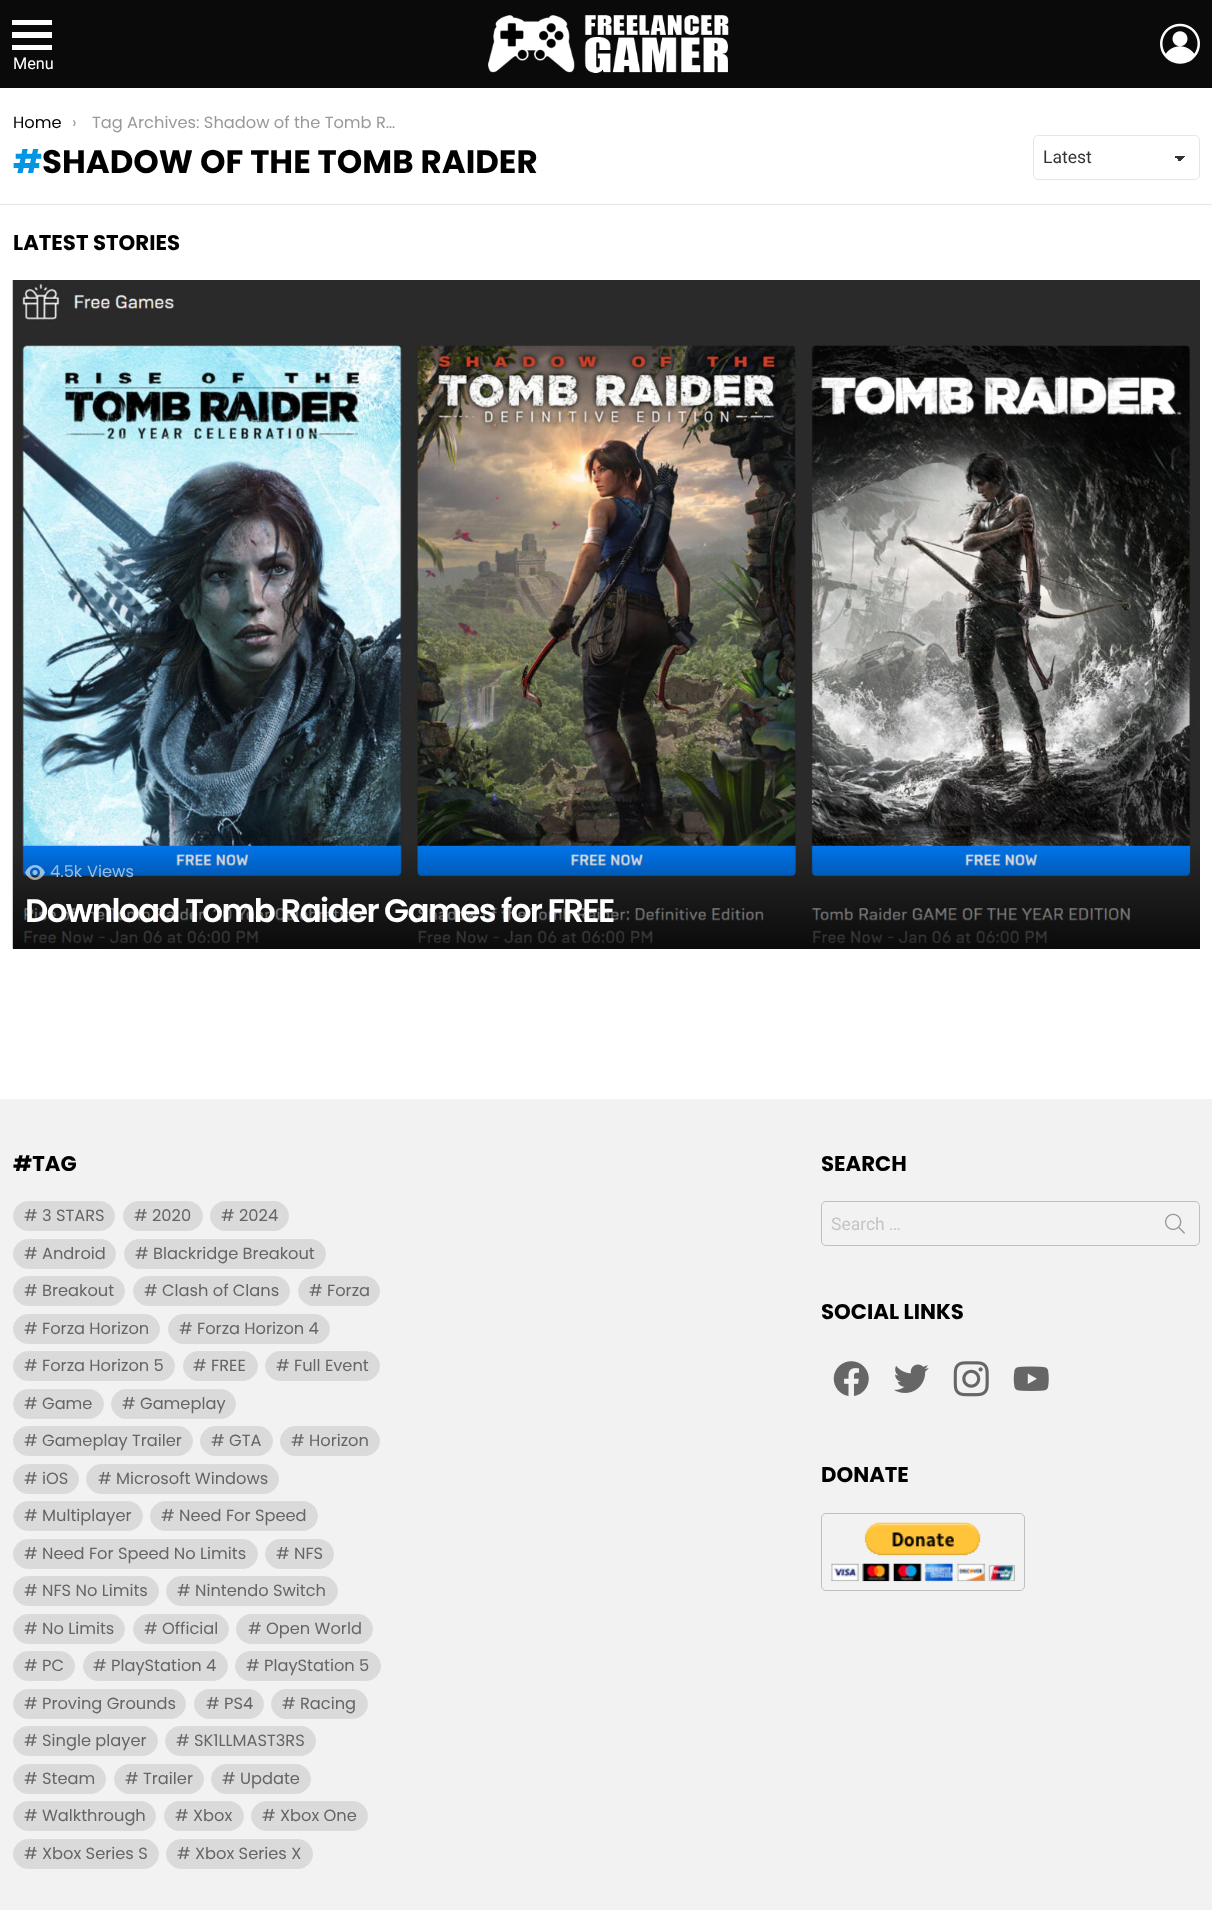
(async () => {
    const canvas = document.querySelector("canvas");
    canvas.width = 1212;
    canvas.height = 1910;
    const context = canvas.getContext("2d");
    context.miterLimit = 4;
    context.fontKerning = "normal";
    function write(s, x, y, font, color) {
        context.font = font;
        context.fillStyle = color;
        context.fillText(s, x, y);
    }
    function block(x, y, w, h, color) {
        context.fillStyle = color;
        context.fillRect(x, y, w, h);
    }
    async function photo(src, x, y, w, h) {
        const img = new Image();
        img.src = src;
        await img.decode();
        context.drawImage(img, x, y, w, h);
    }
    let gradient;

    block(0, 0, 1212, 1910, "rgb(255, 255, 255)");
    block(0, 0, 1212, 88, "rgb(10, 10, 10)");
    context.fillStyle = "rgb(255, 255, 255)";
    context.beginPath();
    context.moveTo(12, 20);
    context.lineTo(52, 20);
    context.lineTo(52, 25);
    context.lineTo(12, 25);
    context.closePath();
    context.moveTo(12, 32);
    context.lineTo(52, 32);
    context.lineTo(52, 38);
    context.lineTo(12, 38);
    context.closePath();
    context.moveTo(12, 45);
    context.lineTo(52, 45);
    context.lineTo(52, 50);
    context.lineTo(12, 50);
    context.closePath();
    context.fill();
    write("Menu", 13, 69, "16.25px Roboto", "rgb(255, 255, 255)");
    await photo("media/1.png", 488, 15, 241, 58);
    await photo("media/2.png", 1160, 23, 40, 41);
    write("Home", 13, 128, "16.25px Poppins", "rgb(0, 0, 0)");
    write("›", 72, 128, "16.25px Poppins", "rgb(153, 153, 153)");
    write("Tag Archives: Shadow of the Tomb R…", 92, 128, "16.25px Poppins", "rgb(153, 153, 153)");
    write("#", 13, 173, "bold 32.5px Poppins", "rgb(0, 150, 227)");
    write("SHADOW OF THE TOMB RAIDER", 42, 173, "bold 32.5px Poppins", "rgb(0, 0, 0)");
    gradient = context.createLinearGradient(1180, 156, 1186, 162);
    gradient.addColorStop(0.5, "rgb(51, 51, 51)");
    gradient.addColorStop(0.5, "rgb(255, 255, 255)");
    context.fillStyle = gradient;
    context.fillRect(1180, 156, 6, 5);
    gradient = context.createLinearGradient(1174, 162, 1180, 156);
    gradient.addColorStop(0.5, "rgb(255, 255, 255)");
    gradient.addColorStop(0.5, "rgb(51, 51, 51)");
    context.fillStyle = gradient;
    context.fillRect(1174, 156, 6, 5);
    context.beginPath();
    context.roundRect(1033.5, 135.5, 166, 44, 4.5);
    context.strokeStyle = "rgb(230, 230, 230)";
    context.stroke();
    write("Latest", 1043, 163, "17.5px Roboto", "rgb(51, 51, 51)");
    block(0, 204, 1212, 1, "rgb(230, 230, 230)");
    write("LATEST STORIES", 13, 250, "bold 21.25px Poppins", "rgb(0, 0, 0)");
    block(13, 948, 1187, 1, "rgb(51, 51, 51)");
    await photo("media/3.png", 12, 280, 1188, 669);
    gradient = context.createLinearGradient(606, 841, 606, 949);
    gradient.addColorStop(0, "rgba(0, 0, 0, 0)");
    gradient.addColorStop(1, "rgba(0, 0, 0, 0.75)");
    context.fillStyle = gradient;
    context.fillRect(13, 844, 1187, 105);
    await photo("media/4.png", 25, 865, 20, 15);
    write("4.5k", 50, 877, "16.25px Poppins", "rgb(154, 188, 223)");
    write("Views", 87, 877, "16.25px Poppins", "rgb(154, 188, 223)");
    context.letterSpacing = "-1.6px";
    write("Download Tomb Raider Games for FREE", 25, 922, "600 32.5px Poppins", "rgb(255, 255, 255)");
    block(0, 1099, 1212, 811, "rgb(242, 242, 242)");
    context.letterSpacing = "0px";
    write("#TAG", 13, 1171, "bold 21.25px Poppins", "rgb(0, 0, 0)");
    write("# 3 STARS", 24, 1221, "16.25px Poppins", "rgb(102, 102, 102)");
    context.fillStyle = "rgba(102, 102, 102, 0.17)";
    context.beginPath();
    context.roundRect(13.5, 1201.5, 101, 29, 14.5);
    context.fill();
    context.strokeStyle = "rgb(219, 219, 219)";
    context.stroke();
    write("# 2020", 134, 1221, "16.25px Poppins", "rgb(102, 102, 102)");
    context.fillStyle = "rgba(102, 102, 102, 0.17)";
    context.beginPath();
    context.roundRect(123.5, 1201.5, 79, 29, 14.5);
    context.fill();
    context.stroke();
    write("# 2024", 221, 1221, "16.25px Poppins", "rgb(102, 102, 102)");
    context.fillStyle = "rgba(102, 102, 102, 0.17)";
    context.beginPath();
    context.roundRect(210.5, 1201.5, 78, 29, 14.5);
    context.fill();
    context.stroke();
    write("# Android", 24, 1259, "16.25px Poppins", "rgb(102, 102, 102)");
    context.fillStyle = "rgba(102, 102, 102, 0.17)";
    context.beginPath();
    context.roundRect(13.5, 1239.5, 102, 29, 14.5);
    context.fill();
    context.stroke();
    write("# Blackridge Breakout", 135, 1259, "16.25px Poppins", "rgb(102, 102, 102)");
    context.fillStyle = "rgba(102, 102, 102, 0.17)";
    context.beginPath();
    context.roundRect(124.5, 1239.5, 201, 29, 14.5);
    context.fill();
    context.stroke();
    write("# Breakout", 24, 1296, "16.25px Poppins", "rgb(102, 102, 102)");
    context.fillStyle = "rgba(102, 102, 102, 0.17)";
    context.beginPath();
    context.roundRect(13.5, 1276.5, 111, 29, 14.5);
    context.fill();
    context.stroke();
    write("# Clash of Clans", 144, 1296, "16.25px Poppins", "rgb(102, 102, 102)");
    context.fillStyle = "rgba(102, 102, 102, 0.17)";
    context.beginPath();
    context.roundRect(133.5, 1276.5, 156, 29, 14.5);
    context.fill();
    context.stroke();
    write("# Forza", 309, 1296, "16.25px Poppins", "rgb(102, 102, 102)");
    context.fillStyle = "rgba(102, 102, 102, 0.17)";
    context.beginPath();
    context.roundRect(298.5, 1276.5, 81, 29, 14.5);
    context.fill();
    context.stroke();
    write("# Forza Horizon", 24, 1334, "16.25px Poppins", "rgb(102, 102, 102)");
    context.fillStyle = "rgba(102, 102, 102, 0.17)";
    context.beginPath();
    context.roundRect(13.5, 1314.5, 146, 29, 14.5);
    context.fill();
    context.stroke();
    write("# Forza Horizon 4", 179, 1334, "16.25px Poppins", "rgb(102, 102, 102)");
    context.fillStyle = "rgba(102, 102, 102, 0.17)";
    context.beginPath();
    context.roundRect(168.5, 1314.5, 161, 29, 14.5);
    context.fill();
    context.stroke();
    write("# Forza Horizon 5", 24, 1371, "16.25px Poppins", "rgb(102, 102, 102)");
    context.fillStyle = "rgba(102, 102, 102, 0.17)";
    context.beginPath();
    context.roundRect(13.5, 1351.5, 161, 29, 14.5);
    context.fill();
    context.stroke();
    write("# FREE", 193, 1371, "16.25px Poppins", "rgb(102, 102, 102)");
    context.fillStyle = "rgba(102, 102, 102, 0.17)";
    context.beginPath();
    context.roundRect(183.5, 1351.5, 74, 29, 14.5);
    context.fill();
    context.stroke();
    write("# Full Event", 276, 1371, "16.25px Poppins", "rgb(102, 102, 102)");
    context.fillStyle = "rgba(102, 102, 102, 0.17)";
    context.beginPath();
    context.roundRect(265.5, 1351.5, 114, 29, 14.5);
    context.fill();
    context.stroke();
    write("# Game", 24, 1409, "16.25px Poppins", "rgb(102, 102, 102)");
    context.fillStyle = "rgba(102, 102, 102, 0.17)";
    context.beginPath();
    context.roundRect(13.5, 1389.5, 90, 29, 14.5);
    context.fill();
    context.stroke();
    write("# Gameplay", 122, 1409, "16.25px Poppins", "rgb(102, 102, 102)");
    context.fillStyle = "rgba(102, 102, 102, 0.17)";
    context.beginPath();
    context.roundRect(111.5, 1389.5, 124, 29, 14.5);
    context.fill();
    context.stroke();
    write("# Gameplay Trailer", 24, 1446, "16.25px Poppins", "rgb(102, 102, 102)");
    context.fillStyle = "rgba(102, 102, 102, 0.17)";
    context.beginPath();
    context.roundRect(13.5, 1426.5, 179, 29, 14.5);
    context.fill();
    context.stroke();
    write("# GTA", 211, 1446, "16.25px Poppins", "rgb(102, 102, 102)");
    context.fillStyle = "rgba(102, 102, 102, 0.17)";
    context.beginPath();
    context.roundRect(200.5, 1426.5, 72, 29, 14.5);
    context.fill();
    context.stroke();
    write("# Horizon", 291, 1446, "16.25px Poppins", "rgb(102, 102, 102)");
    context.fillStyle = "rgba(102, 102, 102, 0.17)";
    context.beginPath();
    context.roundRect(280.5, 1426.5, 99, 29, 14.5);
    context.fill();
    context.stroke();
    write("# iOS", 24, 1484, "16.25px Poppins", "rgb(102, 102, 102)");
    context.fillStyle = "rgba(102, 102, 102, 0.17)";
    context.beginPath();
    context.roundRect(13.5, 1464.5, 65, 29, 14.5);
    context.fill();
    context.stroke();
    write("# Microsoft Windows", 98, 1484, "16.25px Poppins", "rgb(102, 102, 102)");
    context.fillStyle = "rgba(102, 102, 102, 0.17)";
    context.beginPath();
    context.roundRect(86.5, 1464.5, 192, 29, 14.5);
    context.fill();
    context.stroke();
    write("# Multiplayer", 24, 1521, "16.25px Poppins", "rgb(102, 102, 102)");
    context.fillStyle = "rgba(102, 102, 102, 0.17)";
    context.beginPath();
    context.roundRect(13.5, 1501.5, 129, 29, 14.5);
    context.fill();
    context.stroke();
    write("# Need For Speed", 161, 1521, "16.25px Poppins", "rgb(102, 102, 102)");
    context.fillStyle = "rgba(102, 102, 102, 0.17)";
    context.beginPath();
    context.roundRect(150.5, 1501.5, 167, 29, 14.5);
    context.fill();
    context.stroke();
    write("# Need For Speed No Limits", 24, 1559, "16.25px Poppins", "rgb(102, 102, 102)");
    context.fillStyle = "rgba(102, 102, 102, 0.17)";
    context.beginPath();
    context.roundRect(13.5, 1539.5, 244, 29, 14.5);
    context.fill();
    context.stroke();
    write("# NFS", 276, 1559, "16.25px Poppins", "rgb(102, 102, 102)");
    context.fillStyle = "rgba(102, 102, 102, 0.17)";
    context.beginPath();
    context.roundRect(265.5, 1539.5, 68, 29, 14.5);
    context.fill();
    context.stroke();
    write("# NFS No Limits", 24, 1596, "16.25px Poppins", "rgb(102, 102, 102)");
    context.fillStyle = "rgba(102, 102, 102, 0.17)";
    context.beginPath();
    context.roundRect(13.5, 1576.5, 145, 29, 14.5);
    context.fill();
    context.stroke();
    write("# Nintendo Switch", 177, 1596, "16.25px Poppins", "rgb(102, 102, 102)");
    context.fillStyle = "rgba(102, 102, 102, 0.17)";
    context.beginPath();
    context.roundRect(166.5, 1576.5, 171, 29, 14.5);
    context.fill();
    context.stroke();
    write("# No Limits", 24, 1634, "16.25px Poppins", "rgb(102, 102, 102)");
    context.fillStyle = "rgba(102, 102, 102, 0.17)";
    context.beginPath();
    context.roundRect(13.5, 1614.5, 111, 29, 14.5);
    context.fill();
    context.stroke();
    write("# Official", 144, 1634, "16.25px Poppins", "rgb(102, 102, 102)");
    context.fillStyle = "rgba(102, 102, 102, 0.17)";
    context.beginPath();
    context.roundRect(133.5, 1614.5, 95, 29, 14.5);
    context.fill();
    context.stroke();
    write("# Open World", 248, 1634, "16.25px Poppins", "rgb(102, 102, 102)");
    context.fillStyle = "rgba(102, 102, 102, 0.17)";
    context.beginPath();
    context.roundRect(236.5, 1614.5, 136, 29, 14.5);
    context.fill();
    context.stroke();
    write("# PC", 24, 1671, "16.25px Poppins", "rgb(102, 102, 102)");
    context.fillStyle = "rgba(102, 102, 102, 0.17)";
    context.beginPath();
    context.roundRect(13.5, 1651.5, 61, 29, 14.5);
    context.fill();
    context.stroke();
    write("# PlayStation 4", 93, 1671, "16.25px Poppins", "rgb(102, 102, 102)");
    context.fillStyle = "rgba(102, 102, 102, 0.17)";
    context.beginPath();
    context.roundRect(83.5, 1651.5, 144, 29, 14.5);
    context.fill();
    context.stroke();
    write("# PlayStation 5", 246, 1671, "16.25px Poppins", "rgb(102, 102, 102)");
    context.fillStyle = "rgba(102, 102, 102, 0.17)";
    context.beginPath();
    context.roundRect(235.5, 1651.5, 145, 29, 14.5);
    context.fill();
    context.stroke();
    write("# Proving Grounds", 24, 1709, "16.25px Poppins", "rgb(102, 102, 102)");
    context.fillStyle = "rgba(102, 102, 102, 0.17)";
    context.beginPath();
    context.roundRect(13.5, 1689.5, 172, 29, 14.5);
    context.fill();
    context.stroke();
    write("# PS4", 206, 1709, "16.25px Poppins", "rgb(102, 102, 102)");
    context.fillStyle = "rgba(102, 102, 102, 0.17)";
    context.beginPath();
    context.roundRect(194.5, 1689.5, 69, 29, 14.5);
    context.fill();
    context.stroke();
    write("# Racing", 282, 1709, "16.25px Poppins", "rgb(102, 102, 102)");
    context.fillStyle = "rgba(102, 102, 102, 0.17)";
    context.beginPath();
    context.roundRect(271.5, 1689.5, 96, 29, 14.5);
    context.fill();
    context.stroke();
    write("# Single player", 24, 1746, "16.25px Poppins", "rgb(102, 102, 102)");
    context.fillStyle = "rgba(102, 102, 102, 0.17)";
    context.beginPath();
    context.roundRect(13.5, 1726.5, 144, 29, 14.5);
    context.fill();
    context.stroke();
    write("# SK1LLMAST3RS", 176, 1746, "16.25px Poppins", "rgb(102, 102, 102)");
    context.fillStyle = "rgba(102, 102, 102, 0.17)";
    context.beginPath();
    context.roundRect(165.5, 1726.5, 150, 29, 14.5);
    context.fill();
    context.stroke();
    write("# Steam", 24, 1784, "16.25px Poppins", "rgb(102, 102, 102)");
    context.fillStyle = "rgba(102, 102, 102, 0.17)";
    context.beginPath();
    context.roundRect(13.5, 1764.5, 92, 29, 14.5);
    context.fill();
    context.stroke();
    write("# Trailer", 125, 1784, "16.25px Poppins", "rgb(102, 102, 102)");
    context.fillStyle = "rgba(102, 102, 102, 0.17)";
    context.beginPath();
    context.roundRect(114.5, 1764.5, 89, 29, 14.5);
    context.fill();
    context.stroke();
    write("# Update", 222, 1784, "16.25px Poppins", "rgb(102, 102, 102)");
    context.fillStyle = "rgba(102, 102, 102, 0.17)";
    context.beginPath();
    context.roundRect(211.5, 1764.5, 99, 29, 14.5);
    context.fill();
    context.stroke();
    write("# Walkthrough", 24, 1821, "16.25px Poppins", "rgb(102, 102, 102)");
    context.fillStyle = "rgba(102, 102, 102, 0.17)";
    context.beginPath();
    context.roundRect(13.5, 1801.5, 142, 29, 14.5);
    context.fill();
    context.stroke();
    write("# Xbox", 175, 1821, "16.25px Poppins", "rgb(102, 102, 102)");
    context.fillStyle = "rgba(102, 102, 102, 0.17)";
    context.beginPath();
    context.roundRect(164.5, 1801.5, 79, 29, 14.5);
    context.fill();
    context.stroke();
    write("# Xbox One", 262, 1821, "16.25px Poppins", "rgb(102, 102, 102)");
    context.fillStyle = "rgba(102, 102, 102, 0.17)";
    context.beginPath();
    context.roundRect(251.5, 1801.5, 116, 29, 14.5);
    context.fill();
    context.stroke();
    write("# Xbox Series S", 24, 1859, "16.25px Poppins", "rgb(102, 102, 102)");
    context.fillStyle = "rgba(102, 102, 102, 0.17)";
    context.beginPath();
    context.roundRect(13.5, 1839.5, 145, 29, 14.5);
    context.fill();
    context.stroke();
    write("# Xbox Series X", 177, 1859, "16.25px Poppins", "rgb(102, 102, 102)");
    context.fillStyle = "rgba(102, 102, 102, 0.17)";
    context.beginPath();
    context.roundRect(166.5, 1839.5, 146, 29, 14.5);
    context.fill();
    context.stroke();
    write("SEARCH", 821, 1171, "bold 21.25px Poppins", "rgb(0, 0, 0)");
    context.beginPath();
    context.roundRect(821.5, 1201.5, 378, 44, 4.5);
    context.strokeStyle = "rgb(191, 191, 191)";
    context.stroke();
    write("Search …", 831, 1230, "17.5px Roboto", "rgb(196, 196, 196)");
    await photo("media/5.png", 1165, 1213, 20, 21);
    write("SOCIAL LINKS", 821, 1319, "bold 21.25px Poppins", "rgb(0, 0, 0)");
    await photo("media/6.png", 833, 1361, 36, 35);
    await photo("media/7.png", 894, 1364, 35, 29);
    await photo("media/8.png", 953, 1361, 36, 36);
    await photo("media/9.png", 1013, 1366, 36, 25);
    write("DONATE", 821, 1482, "bold 21.25px Poppins", "rgb(0, 0, 0)");
    context.beginPath();
    context.roundRect(821.5, 1513.5, 203, 77, 4.5);
    context.stroke();
    await photo("media/10.png", 831, 1522, 184, 60);
})();
